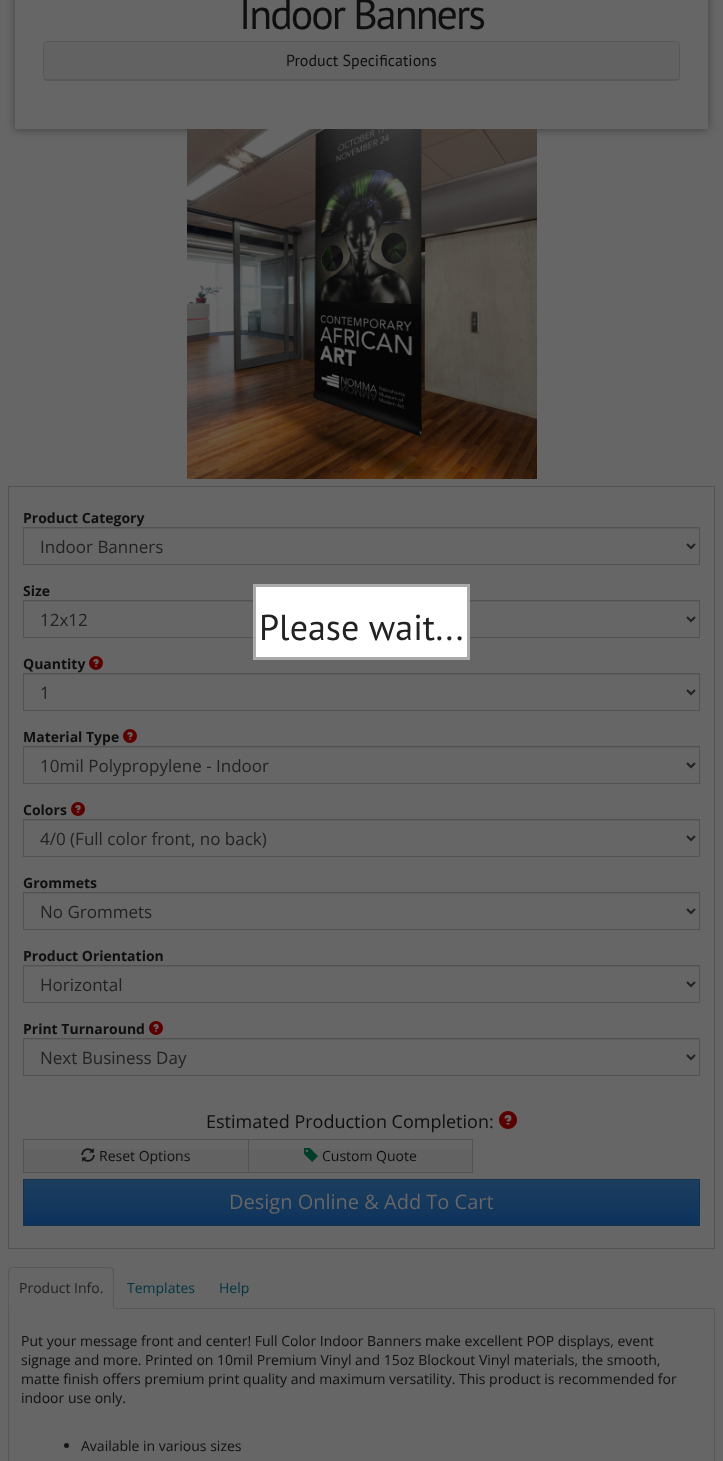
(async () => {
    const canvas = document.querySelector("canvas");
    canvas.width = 723;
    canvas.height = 1461;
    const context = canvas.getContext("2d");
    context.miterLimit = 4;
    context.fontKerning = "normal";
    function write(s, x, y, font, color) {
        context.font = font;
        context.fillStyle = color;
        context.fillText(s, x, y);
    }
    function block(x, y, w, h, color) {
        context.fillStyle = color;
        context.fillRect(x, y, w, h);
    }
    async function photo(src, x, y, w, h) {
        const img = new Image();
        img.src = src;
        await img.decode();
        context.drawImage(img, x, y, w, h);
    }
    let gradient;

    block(0, 0, 723, 1461, "rgb(102, 102, 102)");
    context.save();
    context.beginPath();
    context.moveTo(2, 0);
    context.lineTo(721, 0);
    context.lineTo(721, 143);
    context.lineTo(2, 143);
    context.closePath();
    context.moveTo(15, -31);
    context.lineTo(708, -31);
    context.lineTo(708, 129);
    context.lineTo(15, 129);
    context.closePath();
    context.clip("evenodd");
    context.fillStyle = "rgba(0, 0, 0, 0.35)";
    context.filter = "blur(4px)";
    context.beginPath();
    context.rect(15, -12, 693, 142);
    context.fill();
    context.filter = "none";
    context.restore();
    context.letterSpacing = "-2px";
    write("Indoor Banners", 239, 29, "42px PT Sans", "rgb(15, 15, 15)");
    context.beginPath();
    context.roundRect(43.5, 41.5, 636, 39, 3.5);
    context.strokeStyle = "rgb(88, 88, 88)";
    context.stroke();
    context.fillStyle = "rgb(98, 98, 98)";
    context.beginPath();
    context.roundRect(44, 42, 635, 38, [3, 3, 0, 0]);
    context.fill();
    block(44, 79, 635, 1, "rgb(88, 88, 88)");
    context.letterSpacing = "0px";
    write("Product Specifications", 286, 66, "16px PT Sans", "rgb(15, 15, 15)");
    await photo("media/1.png", 187, 129, 350, 350);
    context.strokeStyle = "rgb(82, 82, 82)";
    context.strokeRect(8.5, 486.5, 706, 762);
    write("Product Category", 23, 523, "bold 14px Open Sans", "rgb(15, 15, 15)");
    block(24, 528, 675, 1, "rgb(94, 94, 94)");
    context.strokeRect(23.5, 527.5, 676, 37);
    context.beginPath();
    context.moveTo(687, 544);
    context.lineTo(691, 548);
    context.lineTo(695, 544);
    context.strokeStyle = "rgb(34, 34, 34)";
    context.lineWidth = 2;
    context.stroke();
    write("Indoor Banners", 40, 553, "17px Open Sans", "rgb(34, 34, 34)");
    write("Size", 23, 596, "bold 14px Open Sans", "rgb(15, 15, 15)");
    block(24, 601, 675, 1, "rgb(94, 94, 94)");
    context.strokeStyle = "rgb(82, 82, 82)";
    context.lineWidth = 1;
    context.strokeRect(23.5, 600.5, 676, 37);
    context.beginPath();
    context.moveTo(687, 617);
    context.lineTo(691, 621);
    context.lineTo(695, 617);
    context.strokeStyle = "rgb(34, 34, 34)";
    context.lineWidth = 2;
    context.stroke();
    write("12x12", 40, 626, "17px Open Sans", "rgb(34, 34, 34)");
    write("Quantity", 23, 669, "bold 14px Open Sans", "rgb(15, 15, 15)");
    await photo("media/2.png", 89, 656, 14, 14);
    block(24, 674, 675, 1, "rgb(94, 94, 94)");
    context.strokeStyle = "rgb(82, 82, 82)";
    context.lineWidth = 1;
    context.strokeRect(23.5, 673.5, 676, 37);
    context.beginPath();
    context.moveTo(687, 690);
    context.lineTo(691, 694);
    context.lineTo(695, 690);
    context.strokeStyle = "rgb(34, 34, 34)";
    context.lineWidth = 2;
    context.stroke();
    write("1", 40, 699, "17px Open Sans", "rgb(34, 34, 34)");
    write("Material Type", 23, 742, "bold 14px Open Sans", "rgb(15, 15, 15)");
    await photo("media/2.png", 123, 729, 14, 14);
    block(24, 747, 675, 1, "rgb(94, 94, 94)");
    context.strokeStyle = "rgb(82, 82, 82)";
    context.lineWidth = 1;
    context.strokeRect(23.5, 746.5, 676, 37);
    context.beginPath();
    context.moveTo(687, 763);
    context.lineTo(691, 767);
    context.lineTo(695, 763);
    context.strokeStyle = "rgb(34, 34, 34)";
    context.lineWidth = 2;
    context.stroke();
    write("10mil Polypropylene - Indoor", 40, 772, "17px Open Sans", "rgb(34, 34, 34)");
    write("Colors", 23, 815, "bold 14px Open Sans", "rgb(15, 15, 15)");
    await photo("media/2.png", 71, 802, 14, 14);
    block(24, 820, 675, 1, "rgb(94, 94, 94)");
    context.strokeStyle = "rgb(82, 82, 82)";
    context.lineWidth = 1;
    context.strokeRect(23.5, 819.5, 676, 37);
    context.beginPath();
    context.moveTo(687, 836);
    context.lineTo(691, 840);
    context.lineTo(695, 836);
    context.strokeStyle = "rgb(34, 34, 34)";
    context.lineWidth = 2;
    context.stroke();
    write("4/0 (Full color front, no back)", 40, 845, "17px Open Sans", "rgb(34, 34, 34)");
    write("Grommets", 23, 888, "bold 14px Open Sans", "rgb(15, 15, 15)");
    block(24, 893, 675, 1, "rgb(94, 94, 94)");
    context.strokeStyle = "rgb(82, 82, 82)";
    context.lineWidth = 1;
    context.strokeRect(23.5, 892.5, 676, 37);
    context.beginPath();
    context.moveTo(687, 909);
    context.lineTo(691, 913);
    context.lineTo(695, 909);
    context.strokeStyle = "rgb(34, 34, 34)";
    context.lineWidth = 2;
    context.stroke();
    write("No Grommets", 40, 918, "17px Open Sans", "rgb(34, 34, 34)");
    write("Product Orientation", 23, 961, "bold 14px Open Sans", "rgb(15, 15, 15)");
    block(24, 966, 675, 1, "rgb(94, 94, 94)");
    context.strokeStyle = "rgb(82, 82, 82)";
    context.lineWidth = 1;
    context.strokeRect(23.5, 965.5, 676, 37);
    context.beginPath();
    context.moveTo(687, 982);
    context.lineTo(691, 986);
    context.lineTo(695, 982);
    context.strokeStyle = "rgb(34, 34, 34)";
    context.lineWidth = 2;
    context.stroke();
    write("Horizontal", 40, 991, "17px Open Sans", "rgb(34, 34, 34)");
    write("Print Turnaround", 23, 1034, "bold 14px Open Sans", "rgb(15, 15, 15)");
    await photo("media/2.png", 149, 1021, 14, 14);
    block(24, 1039, 675, 1, "rgb(94, 94, 94)");
    context.strokeStyle = "rgb(82, 82, 82)";
    context.lineWidth = 1;
    context.strokeRect(23.5, 1038.5, 676, 37);
    context.beginPath();
    context.moveTo(687, 1055);
    context.lineTo(691, 1059);
    context.lineTo(695, 1055);
    context.strokeStyle = "rgb(34, 34, 34)";
    context.lineWidth = 2;
    context.stroke();
    write("Next Business Day", 40, 1064, "17px Open Sans", "rgb(34, 34, 34)");
    write("Estimated Production Completion:", 206, 1128, "18px Open Sans", "rgb(15, 15, 15)");
    await photo("media/3.png", 499, 1111, 18, 18);
    gradient = context.createLinearGradient(136, 1140, 136, 1172);
    gradient.addColorStop(0, "rgb(102, 102, 102)");
    gradient.addColorStop(0.47, "rgb(98, 98, 98)");
    gradient.addColorStop(1, "rgb(99, 99, 99)");
    context.fillStyle = gradient;
    context.fillRect(24, 1149, 224, 23);
    context.strokeStyle = "rgb(82, 82, 82)";
    context.lineWidth = 1;
    context.strokeRect(23.5, 1139.5, 225, 33);
    await photo("media/4.png", 81, 1148, 14, 14);
    write("Reset Options", 99, 1161, "14px Open Sans", "rgb(15, 15, 15)");
    gradient = context.createLinearGradient(361, 1140, 361, 1172);
    gradient.addColorStop(0, "rgb(102, 102, 102)");
    gradient.addColorStop(0.47, "rgb(98, 98, 98)");
    gradient.addColorStop(1, "rgb(99, 99, 99)");
    context.fillStyle = gradient;
    context.fillRect(249, 1149, 223, 23);
    context.strokeRect(248.5, 1139.5, 224, 33);
    await photo("media/5.png", 304, 1148, 14, 14);
    write("Custom Quote", 322, 1161, "14px Open Sans", "rgb(15, 15, 15)");
    gradient = context.createLinearGradient(362, 1180, 362, 1225);
    gradient.addColorStop(0, "rgb(29, 62, 94)");
    gradient.addColorStop(1, "rgb(13, 50, 92)");
    context.fillStyle = gradient;
    context.fillRect(24, 1180, 675, 45);
    context.strokeStyle = "rgb(21, 50, 76)";
    context.strokeRect(23.5, 1179.5, 676, 46);
    write("Design Online & Add To Cart", 229, 1209, "20px Open Sans", "rgb(102, 102, 102)");
    block(114, 1308, 601, 1, "rgb(88, 88, 88)");
    context.beginPath();
    context.moveTo(12, 1267);
    context.lineTo(9, 1268);
    context.lineTo(10, 1269);
    context.lineTo(12, 1268);
    context.lineTo(110, 1268);
    context.lineTo(112, 1269);
    context.lineTo(113, 1268);
    context.lineTo(110, 1267);
    context.closePath();
    context.fill();
    context.beginPath();
    context.moveTo(114, 1309);
    context.lineTo(114, 1271);
    context.bezierCurveTo(114, 1270, 114, 1269, 113, 1268);
    context.lineTo(112, 1269);
    context.bezierCurveTo(114, 1271, 113, 1303, 113, 1308);
    context.closePath();
    context.fill();
    context.beginPath();
    context.moveTo(8, 1309);
    context.lineTo(9, 1308);
    context.bezierCurveTo(9, 1303, 8, 1271, 10, 1269);
    context.lineTo(9, 1268);
    context.lineTo(8, 1271);
    context.closePath();
    context.fill();
    write("Product Info.", 19, 1293, "14px Open Sans", "rgb(34, 34, 34)");
    write("Templates", 127, 1293, "14px Open Sans", "rgb(0, 52, 66)");
    write("Help", 219, 1293, "14px Open Sans", "rgb(0, 52, 66)");
    block(714, 1309, 1, 152, "rgb(88, 88, 88)");
    block(8, 1309, 1, 152, "rgb(88, 88, 88)");
    write("Put your message front and center! Full Color Indoor Banners make excellent POP displays, event", 21, 1346, "14px Open Sans", "rgb(15, 15, 15)");
    write("signage and more. Printed on 10mil Premium Vinyl and 15oz Blockout Vinyl materials, the smooth,", 21, 1365, "14px Open Sans", "rgb(15, 15, 15)");
    write("matte finish offers premium print quality and maximum versatility. This product is recommended for", 21, 1384, "14px Open Sans", "rgb(15, 15, 15)");
    write("indoor use only.", 21, 1403, "14px Open Sans", "rgb(15, 15, 15)");
    context.fillStyle = "rgb(20, 20, 20)";
    context.beginPath();
    context.arc(66.5, 1445.5, 2.5, 0, Math.PI * 2);
    context.fill();
    write("Available in various sizes", 81, 1451, "14px Open Sans", "rgb(15, 15, 15)");
    context.fillStyle = "rgb(255, 255, 255)";
    context.beginPath();
    context.rect(254.5, 585.5, 214, 73);
    context.fill();
    context.strokeStyle = "rgb(170, 170, 170)";
    context.lineWidth = 3;
    context.stroke();
    write("Please wait...", 259, 640, "36px PT Sans", "rgb(34, 34, 34)");
})();
